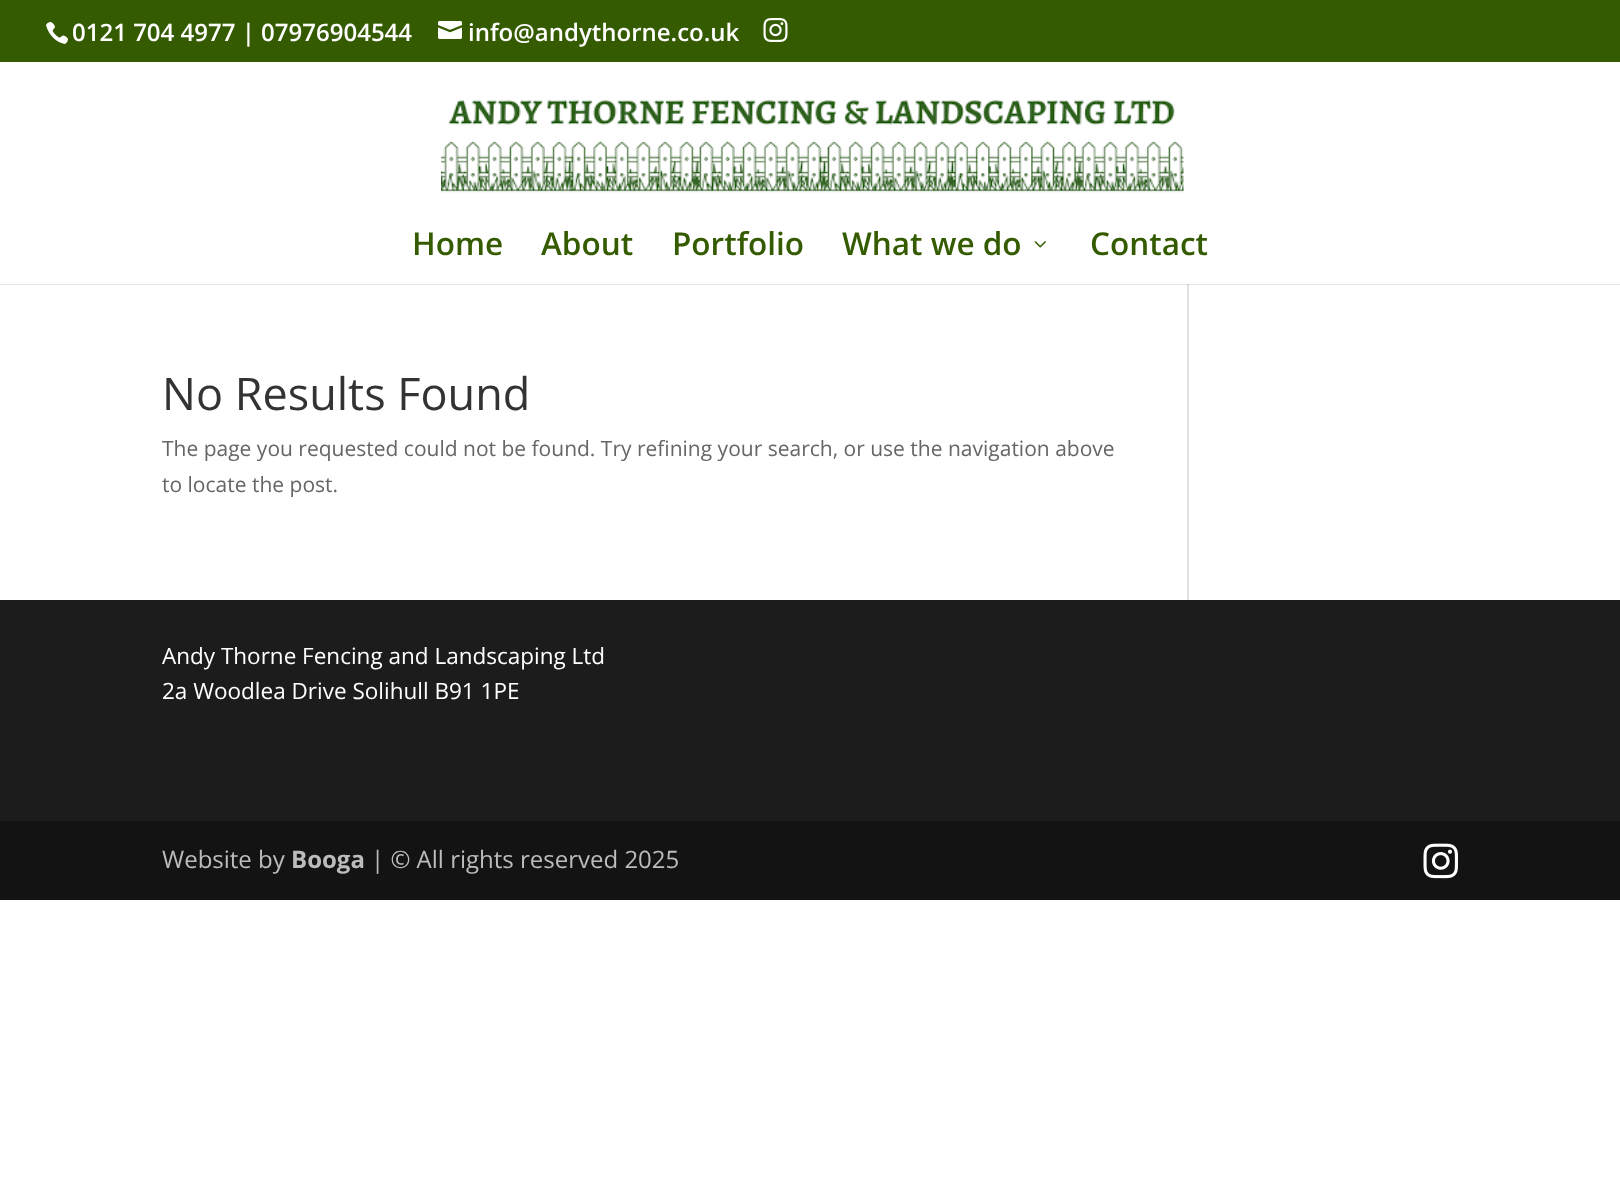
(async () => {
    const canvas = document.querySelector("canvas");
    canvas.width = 1620;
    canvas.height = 1195;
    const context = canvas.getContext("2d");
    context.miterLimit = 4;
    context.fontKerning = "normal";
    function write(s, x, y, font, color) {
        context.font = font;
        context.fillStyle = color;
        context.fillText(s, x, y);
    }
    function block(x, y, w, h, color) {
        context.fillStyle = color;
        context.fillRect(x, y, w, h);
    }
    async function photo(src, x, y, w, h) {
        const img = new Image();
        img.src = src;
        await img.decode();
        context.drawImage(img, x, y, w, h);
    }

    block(0, 0, 1620, 1195, "rgb(255, 255, 255)");
    block(0, 284, 1620, 1, "rgb(230, 230, 230)");
    block(0, 0, 1620, 62, "rgb(53, 91, 0)");
    await photo("media/1.png", 46, 22, 22, 22);
    write("0121 704 4977 | 07976904544", 72, 41, "600 24px Open Sans", "rgb(255, 255, 255)");
    await photo("media/2.png", 438, 21, 24, 18);
    write("info@andythorne.co.uk", 468, 41, "600 24px Open Sans", "rgb(255, 255, 255)");
    await photo("media/3.png", 763, 18, 25, 24);
    await photo("media/4.png", 441, 100, 743, 93);
    write("Home", 412, 255, "600 31.5px Open Sans", "rgb(53, 91, 0)");
    write("About", 541, 255, "600 31.5px Open Sans", "rgb(53, 91, 0)");
    write("Portfolio", 672, 255, "600 31.5px Open Sans", "rgb(53, 91, 0)");
    write("What we do", 842, 255, "600 31.5px Open Sans", "rgb(53, 91, 0)");
    await photo("media/5.png", 1034, 241, 12, 7);
    write("Contact", 1090, 255, "600 31.5px Open Sans", "rgb(53, 91, 0)");
    write("No Results Found", 162, 410, "45px Open Sans", "rgb(51, 51, 51)");
    write("The page you requested could not be found. Try refining your search, or use the navigation above", 162, 456, "21px Open Sans", "rgb(102, 102, 102)");
    write("to locate the post.", 162, 492, "21px Open Sans", "rgb(102, 102, 102)");
    block(1187, 284, 2, 316, "rgb(226, 226, 226)");
    block(1187, 284, 2, 1, "rgb(203, 203, 203)");
    block(0, 600, 1620, 221, "rgb(28, 28, 28)");
    write("Andy Thorne Fencing and Landscaping Ltd", 162, 664, "22.5px Open Sans", "rgb(255, 255, 255)");
    write("2a Woodlea Drive Solihull B91 1PE", 162, 699, "22.5px Open Sans", "rgb(255, 255, 255)");
    block(0, 821, 1620, 79, "rgb(19, 19, 19)");
    write("Website by", 162, 868, "24px Open Sans", "rgb(188, 188, 188)");
    write("Booga", 291, 868, "bold 24px Open Sans", "rgb(188, 188, 188)");
    write("| © All rights reserved 2025", 371, 868, "24px Open Sans", "rgb(188, 188, 188)");
    await photo("media/6.png", 1423, 843, 35, 36);
})();
